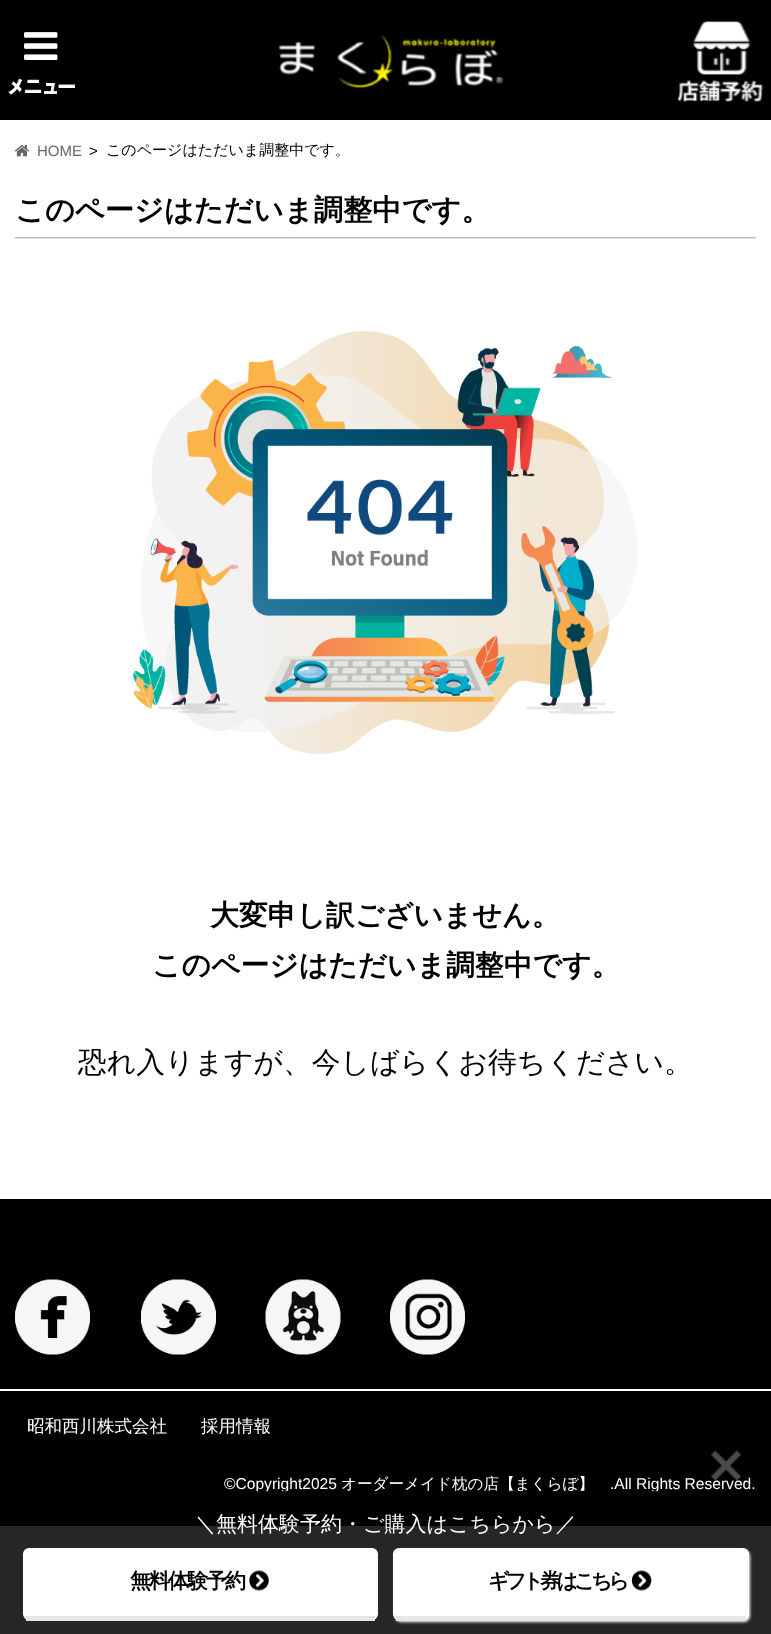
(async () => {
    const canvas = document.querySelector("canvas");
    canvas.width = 771;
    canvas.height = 1634;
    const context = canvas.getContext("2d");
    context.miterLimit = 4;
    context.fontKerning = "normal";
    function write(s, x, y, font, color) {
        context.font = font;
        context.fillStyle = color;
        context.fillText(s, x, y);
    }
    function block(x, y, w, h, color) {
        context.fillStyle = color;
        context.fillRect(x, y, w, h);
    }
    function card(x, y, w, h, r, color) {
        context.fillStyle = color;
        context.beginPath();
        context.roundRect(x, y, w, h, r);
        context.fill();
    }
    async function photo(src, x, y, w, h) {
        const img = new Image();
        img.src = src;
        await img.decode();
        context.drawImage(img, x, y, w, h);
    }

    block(0, 0, 771, 1634, "rgb(255, 255, 255)");
    block(0, 0, 771, 120, "rgb(0, 0, 0)");
    await photo("media/1.png", 24, 32, 34, 28);
    await photo("media/2.png", 8, 78, 67, 17);
    await photo("media/3.png", 678, 21, 86, 82);
    await photo("media/4.png", 279, 34, 225, 55);
    await photo("media/5.png", 14, 145, 15, 12);
    write("HOME", 37, 156, "15px Liberation Sans", "rgb(102, 102, 102)");
    write(">", 89, 156, "15px Liberation Sans", "rgb(0, 0, 0)");
    write("このページはただいま調整中です。", 106, 155, "500 15px WenQuanYi Zen Hei", "rgb(0, 0, 0)");
    await photo("media/6.png", 15, 237, 741, 2);
    write("このページはただいま調整中です。", 15, 220, "bold 29.25px WenQuanYi Zen Hei", "rgb(0, 0, 0)");
    await photo("media/7.png", 132, 330, 505, 424);
    write("大変申し訳ございません。", 210, 925, "bold 28.8px WenQuanYi Zen Hei", "rgb(0, 0, 0)");
    write("このページはただいま調整中です。", 152, 975, "bold 28.8px WenQuanYi Zen Hei", "rgb(0, 0, 0)");
    write("恐れ入りますが、今しばらくお待ちください。", 78, 1072, "500 28.8px WenQuanYi Zen Hei", "rgb(0, 0, 0)");
    block(0, 1199, 771, 190, "rgb(0, 0, 0)");
    await photo("media/8.png", 15, 1279, 75, 76);
    await photo("media/9.png", 141, 1279, 75, 76);
    await photo("media/10.png", 265, 1279, 76, 76);
    await photo("media/11.png", 390, 1279, 75, 76);
    block(0, 1391, 771, 135, "rgb(0, 0, 0)");
    write("昭和西川株式会社", 27, 1432, "500 17.5px WenQuanYi Zen Hei", "rgb(255, 255, 255)");
    write("採用情報", 201, 1432, "500 17.5px WenQuanYi Zen Hei", "rgb(255, 255, 255)");
    write("©Copyright2025", 224, 1489, "15.6px Liberation Sans", "rgb(255, 255, 255)");
    write("オーダーメイド枕の店【まくらぼ】", 341, 1489, "500 15.6px WenQuanYi Zen Hei", "rgb(255, 255, 255)");
    write(".All Rights Reserved.", 610, 1489, "15.6px Liberation Sans", "rgb(255, 255, 255)");
    block(0, 1491, 771, 143, "rgba(0, 0, 0, 0.85)");
    await photo("media/12.png", 711, 1450, 30, 31);
    write("＼無料体験予約・ご購入はこちらから／", 195, 1531, "500 21px WenQuanYi Zen Hei", "rgb(255, 255, 255)");
    card(23, 1548, 355, 72, 6, "rgb(255, 255, 255)");
    block(26, 1616, 349, 5, "rgb(230, 230, 230)");
    context.letterSpacing = "-2px";
    write("無料体験予約", 130, 1588, "bold 21px WenQuanYi Zen Hei", "rgb(0, 0, 0)");
    await photo("media/13.png", 249, 1570, 20, 21);
    context.fillStyle = "rgb(255, 255, 255)";
    context.filter = "blur(1.5px)";
    context.beginPath();
    context.roundRect(395, 1550, 355, 72, 6);
    context.fill();
    context.filter = "none";
    card(393, 1548, 356, 72, 6, "rgb(255, 255, 255)");
    block(396, 1616, 350, 5, "rgb(230, 230, 230)");
    context.letterSpacing = "-4.25px";
    write("ギフト券はこちら", 488, 1588, "bold 21px WenQuanYi Zen Hei", "rgb(0, 0, 0)");
    await photo("media/14.png", 631, 1570, 21, 21);
})();
